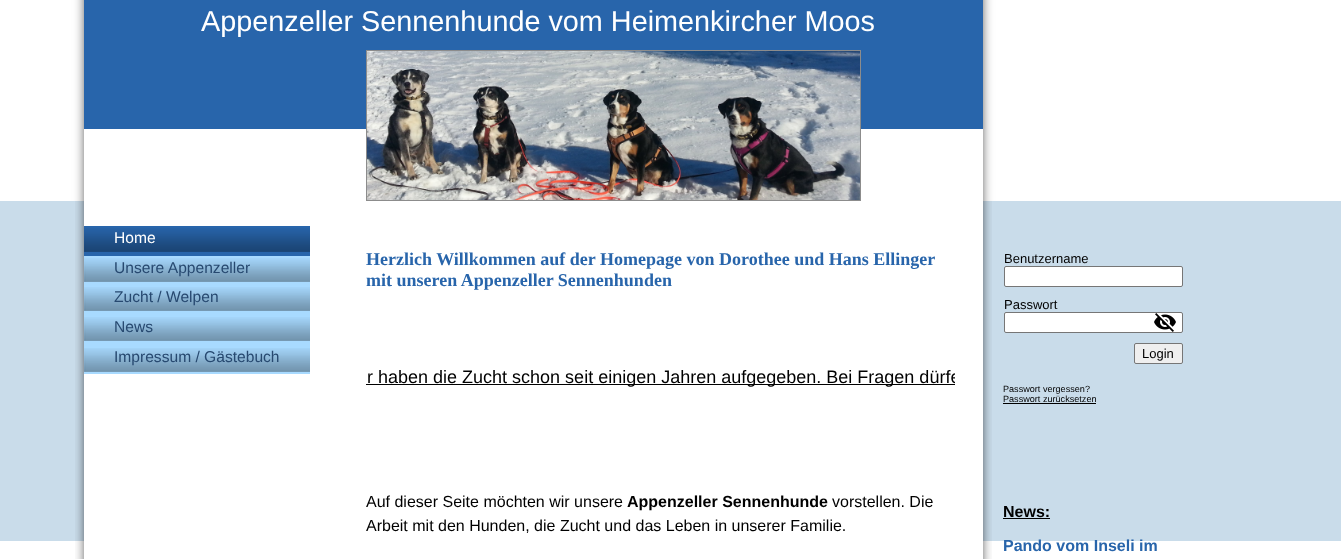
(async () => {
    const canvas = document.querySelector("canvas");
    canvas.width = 1341;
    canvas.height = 559;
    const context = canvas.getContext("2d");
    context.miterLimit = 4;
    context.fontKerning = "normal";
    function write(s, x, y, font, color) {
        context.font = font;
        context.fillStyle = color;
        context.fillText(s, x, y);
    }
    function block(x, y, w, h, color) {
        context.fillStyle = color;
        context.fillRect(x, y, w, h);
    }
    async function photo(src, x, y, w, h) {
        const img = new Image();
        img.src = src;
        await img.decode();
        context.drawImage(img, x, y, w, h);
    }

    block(0, 0, 1341, 559, "rgb(201, 220, 234)");
    await photo("media/1.png", 0, 0, 1341, 559);
    block(84, 0, 899, 129, "rgb(40, 101, 171)");
    await photo("media/2.png", 71, 0, 925, 201);
    write("Appenzeller Sennenhunde vom Heimenkircher Moos", 201, 31, "28.8px Liberation Sans", "rgb(255, 255, 255)");
    await photo("media/3.png", 367, 51, 493, 149);
    await photo("media/4.png", 75, 201, 917, 358);
    block(84, 201, 899, 340, "rgb(255, 255, 255)");
    block(84, 226, 226, 30, "rgb(40, 101, 171)");
    await photo("media/5.png", 84, 228, 226, 24);
    write("Home", 114, 243, "15.6px Liberation Sans", "rgb(255, 255, 255)");
    block(84, 256, 226, 118, "rgb(168, 218, 255)");
    await photo("media/6.png", 84, 258, 226, 24);
    write("Unsere Appenzeller", 114, 273, "15.6px Liberation Sans", "rgb(39, 73, 112)");
    await photo("media/6.png", 84, 287, 226, 24);
    write("Zucht / Welpen", 114, 302, "15.6px Liberation Sans", "rgb(39, 73, 112)");
    await photo("media/6.png", 84, 317, 226, 24);
    write("News", 114, 332, "15.6px Liberation Sans", "rgb(39, 73, 112)");
    await photo("media/7.png", 84, 348, 226, 24);
    write("Impressum / Gästebuch", 114, 362, "15.6px Liberation Sans", "rgb(39, 73, 112)");
    write("Herzlich Willkommen auf der Homepage von Dorothee und Hans Ellinger", 366, 265, "bold 18px Liberation Serif", "rgb(40, 101, 171)");
    write("mit unseren Appenzeller Sennenhunden", 366, 286, "bold 18px Liberation Serif", "rgb(40, 101, 171)");
    block(366, 384, 589, 1, "rgb(0, 0, 0)");
    context.save();
    context.beginPath();
    context.rect(366, 367, 589, 21);
    context.clip();
    write("ir haben die Zucht schon seit einigen Jahren aufgegeben. Bei Fragen dürfe", 363, 383, "18px Liberation Sans", "rgb(0, 0, 0)");
    context.restore();
    write("Auf dieser Seite möchten wir unsere", 366, 507, "16px Liberation Sans", "rgb(0, 0, 0)");
    write("Appenzeller Sennenhunde", 627, 507, "bold 16px Liberation Sans", "rgb(0, 0, 0)");
    write("vorstellen. Die", 832, 507, "16px Liberation Sans", "rgb(0, 0, 0)");
    write("Arbeit mit den Hunden, die Zucht und das Leben in unserer Familie.", 366, 531, "16px Liberation Sans", "rgb(0, 0, 0)");
    write("Benutzername", 1004, 263, "13px Liberation Sans", "rgb(0, 0, 0)");
    context.fillStyle = "rgb(255, 255, 255)";
    context.beginPath();
    context.roundRect(1004.5, 266.5, 178, 20, 1.5);
    context.fill();
    context.strokeStyle = "rgb(118, 118, 118)";
    context.stroke();
    write("Passwort", 1004, 309, "13px Liberation Sans", "rgb(0, 0, 0)");
    context.fillStyle = "rgb(255, 255, 255)";
    context.beginPath();
    context.roundRect(1004.5, 312.5, 178, 20, 1.5);
    context.fill();
    context.stroke();
    await photo("media/8.png", 1154, 313, 22, 19);
    context.fillStyle = "rgb(239, 239, 239)";
    context.beginPath();
    context.roundRect(1134.5, 343.5, 48, 20, 1.5);
    context.fill();
    context.stroke();
    write("Login", 1142, 358, "13px Liberation Sans", "rgb(0, 0, 0)");
    write("Passwort vergessen?", 1003, 392, "9.1px Liberation Sans", "rgb(0, 0, 0)");
    write("Passwort zurücksetzen", 1003, 402, "9.1px Liberation Sans", "rgb(0, 0, 0)");
    block(1003, 403, 93, 1, "rgb(0, 0, 0)");
    write("News:", 1003, 517, "bold 16px Liberation Sans", "rgb(0, 0, 0)");
    block(1003, 518, 47, 1, "rgb(0, 0, 0)");
    write("Pando vom Inseli im", 1003, 551, "bold 16px Liberation Sans", "rgb(40, 101, 171)");
})();
